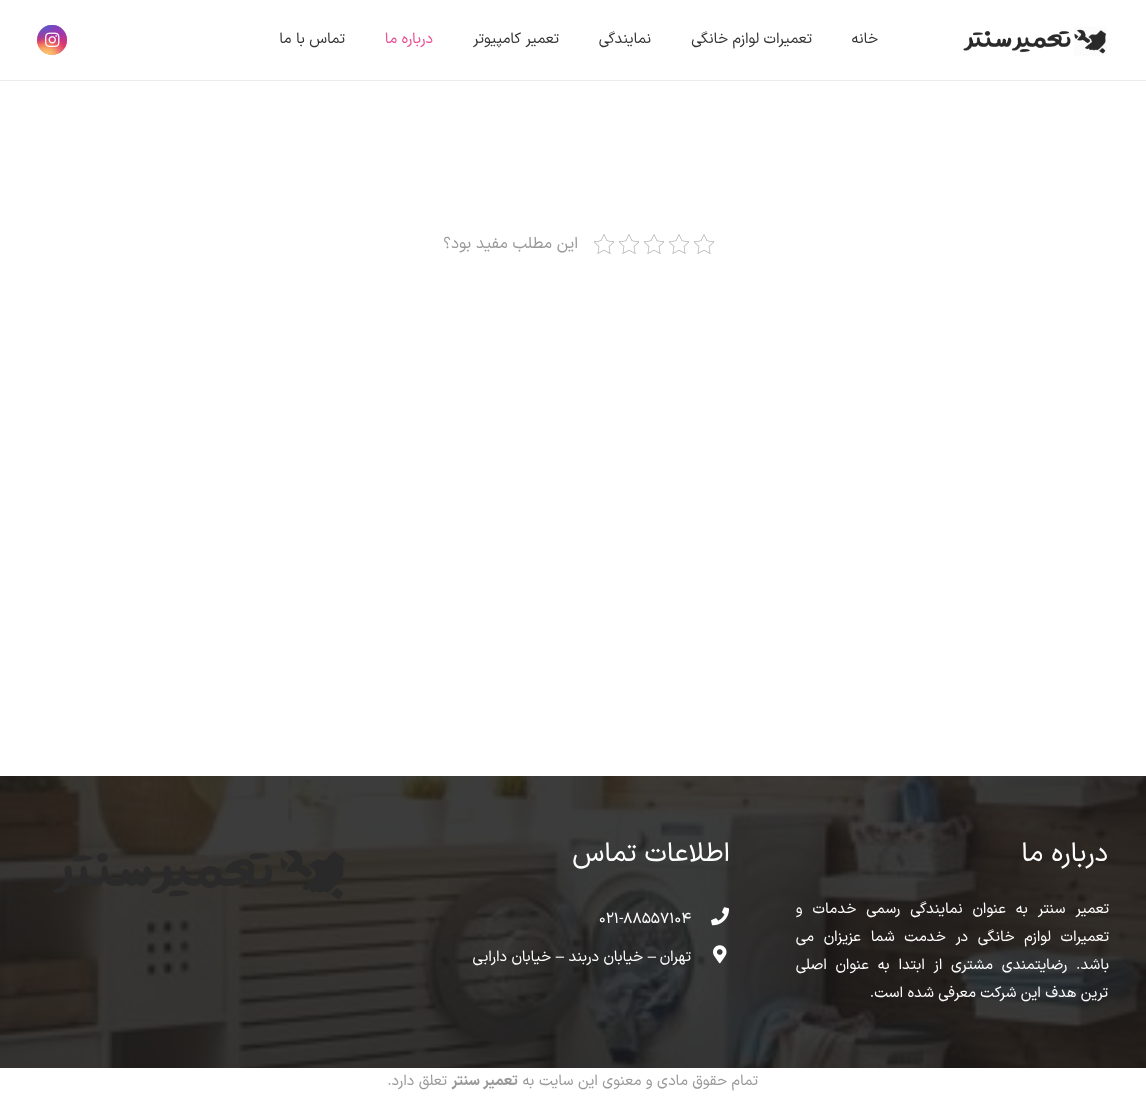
(async () => {
    const canvas = document.querySelector("canvas");
    canvas.width = 1146;
    canvas.height = 1096;
    const context = canvas.getContext("2d");
    context.miterLimit = 4;
    context.fontKerning = "normal";
    function write(s, x, y, font, color) {
        context.font = font;
        context.fillStyle = color;
        context.fillText(s, x, y);
    }
    function block(x, y, w, h, color) {
        context.fillStyle = color;
        context.fillRect(x, y, w, h);
    }
    async function photo(src, x, y, w, h) {
        const img = new Image();
        img.src = src;
        await img.decode();
        context.drawImage(img, x, y, w, h);
    }
    let gradient;

    block(0, 0, 1146, 1096, "rgb(255, 255, 255)");
    block(0, 80, 1146, 1, "rgb(235, 235, 235)");
    await photo("media/1.png", 963, 27, 144, 29);
    context.direction = "rtl";
    write("خانه", 878, 43, "15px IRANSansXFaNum", "rgb(51, 51, 51)");
    write("تعمیرات لوازم خانگی", 812, 43, "15px IRANSansXFaNum", "rgb(51, 51, 51)");
    write("نمایندگی", 651, 43, "15px IRANSansXFaNum", "rgb(51, 51, 51)");
    write("تعمیر کامپیوتر", 559, 43, "15px IRANSansXFaNum", "rgb(51, 51, 51)");
    write("درباره ما", 433, 43, "15px IRANSansXFaNum", "rgb(233, 80, 149)");
    write("تماس با ما", 345, 43, "15px IRANSansXFaNum", "rgb(51, 51, 51)");
    gradient = context.createLinearGradient(52, 25, 52, 55);
    gradient.addColorStop(0, "rgb(101, 89, 202)");
    gradient.addColorStop(0.3, "rgb(188, 49, 143)");
    gradient.addColorStop(0.5, "rgb(228, 46, 102)");
    gradient.addColorStop(0.7, "rgb(250, 83, 50)");
    gradient.addColorStop(1, "rgb(255, 220, 128)");
    context.fillStyle = gradient;
    context.beginPath();
    context.arc(52, 40, 15, 0, Math.PI * 2);
    context.fill();
    gradient = context.createRadialGradient(67, 55, 0, 67, 55, 42);
    gradient.addColorStop(0, "rgb(217, 49, 122)");
    gradient.addColorStop(1, "rgba(217, 49, 122, 0)");
    context.fillStyle = gradient;
    context.beginPath();
    context.arc(52, 40, 15, 0, Math.PI * 2);
    context.fill();
    gradient = context.createRadialGradient(55, 9.31, 0, 55, 9.31, 25);
    gradient.addColorStop(0, "rgb(137, 61, 194)");
    gradient.addColorStop(0.5, "rgba(137, 61, 194, 0)");
    context.fillStyle = gradient;
    context.beginPath();
    context.arc(52, 40, 15, 0, Math.PI * 2);
    context.save();
    context.clip();
    context.scale(1, 51 / 25);
    context.fillRect(0, 0, 1146, 538);
    context.restore();
    gradient = context.createRadialGradient(67, 25, 0, 67, 25, 42);
    gradient.addColorStop(0, "rgb(137, 61, 194)");
    gradient.addColorStop(0.5, "rgba(137, 61, 194, 0)");
    context.fillStyle = gradient;
    context.beginPath();
    context.arc(52, 40, 15, 0, Math.PI * 2);
    context.fill();
    gradient = context.createRadialGradient(43, 5.31, 0, 43, 5.31, 34);
    gradient.addColorStop(0, "rgb(82, 88, 207)");
    gradient.addColorStop(0.5, "rgba(82, 88, 207, 0)");
    context.fillStyle = gradient;
    context.beginPath();
    context.arc(52, 40, 15, 0, Math.PI * 2);
    context.save();
    context.clip();
    context.scale(1, 64 / 34);
    context.fillRect(0, 0, 1146, 583);
    context.restore();
    gradient = context.createRadialGradient(37, 14.26, 0, 37, 14.26, 42);
    gradient.addColorStop(0, "rgb(82, 88, 207)");
    gradient.addColorStop(0.5, "rgba(82, 88, 207, 0)");
    context.fillStyle = gradient;
    context.beginPath();
    context.arc(52, 40, 15, 0, Math.PI * 2);
    context.save();
    context.clip();
    context.scale(1, 53 / 42);
    context.fillRect(0, 0, 1146, 869);
    context.restore();
    gradient = context.createRadialGradient(40, 67, 0, 40, 67, 50);
    gradient.addColorStop(0, "rgb(254, 218, 126)");
    gradient.addColorStop(0.5, "rgba(254, 218, 126, 0)");
    context.fillStyle = gradient;
    context.beginPath();
    context.arc(52, 40, 15, 0, Math.PI * 2);
    context.fill();
    gradient = context.createRadialGradient(48, 55, 0, 48, 55, 36);
    gradient.addColorStop(0, "rgb(254, 197, 100)");
    gradient.addColorStop(0.5, "rgba(254, 197, 100, 0)");
    context.fillStyle = gradient;
    context.beginPath();
    context.arc(52, 40, 15, 0, Math.PI * 2);
    context.fill();
    await photo("media/2.png", 45, 32, 15, 15);
    await photo("media/3.png", 694, 234, 20, 20);
    await photo("media/3.png", 669, 234, 20, 20);
    await photo("media/3.png", 644, 234, 20, 20);
    await photo("media/3.png", 619, 234, 20, 20);
    await photo("media/3.png", 594, 234, 20, 20);
    write("این مطلب مفید بود؟", 578, 248, "16px IRANSansXFaNum", "rgb(153, 153, 153)");
    await photo("media/4.png", 0, 776, 1146, 292);
    write("درباره ما", 1108, 861, "27px IRANSansXFaNum", "rgb(255, 255, 255)");
    context.wordSpacing = "5.5px";
    write("تعمیر سنتر به عنوان نمایندگی رسمی خدمات و", 1109, 913, "15px IRANSansXFaNum", "rgb(255, 255, 255)");
    context.wordSpacing = "5.25px";
    write("تعمیرات لوازم خانگی در خدمت شما عزیزان می", 1109, 941, "15px IRANSansXFaNum", "rgb(255, 255, 255)");
    context.wordSpacing = "4.25px";
    write("باشد. رضایتمندی مشتری از ابتدا به عنوان اصلی", 1109, 969, "15px IRANSansXFaNum", "rgb(255, 255, 255)");
    context.wordSpacing = "0px";
    write("ترین هدف این شرکت معرفی شده است.", 1108, 997, "15px IRANSansXFaNum", "rgb(255, 255, 255)");
    write("اطلاعات تماس", 730, 861, "27px IRANSansXFaNum", "rgb(255, 255, 255)");
    await photo("media/5.png", 711, 907, 18, 19);
    context.direction = "ltr";
    write("۰۲۱-۸۸۵۵۷۱۰۴", 599, 923, "15px IRANSansXFaNum", "rgb(255, 255, 255)");
    await photo("media/6.png", 713, 945, 14, 19);
    context.direction = "rtl";
    write("تهران", 691, 961, "15px IRANSansXFaNum", "rgb(255, 255, 255)");
    write("–", 656, 961, "15px Liberation Sans", "rgb(255, 255, 255)");
    write("خیابان دربند", 643, 961, "15px IRANSansXFaNum", "rgb(255, 255, 255)");
    write("–", 564, 961, "15px Liberation Sans", "rgb(255, 255, 255)");
    write("خیابان دارابی", 551, 961, "15px IRANSansXFaNum", "rgb(255, 255, 255)");
    await photo("media/7.png", 53, 850, 292, 49);
    write("تمام حقوق مادی و معنوی این سایت به", 758, 1085, "15px IRANSansXFaNum", "rgb(153, 153, 153)");
    write("تعمیر سنتر", 518, 1085, "bold 15px IRANSansXFaNum", "rgb(153, 153, 153)");
    write("تعلق دارد.", 447, 1085, "15px IRANSansXFaNum", "rgb(153, 153, 153)");
})();
